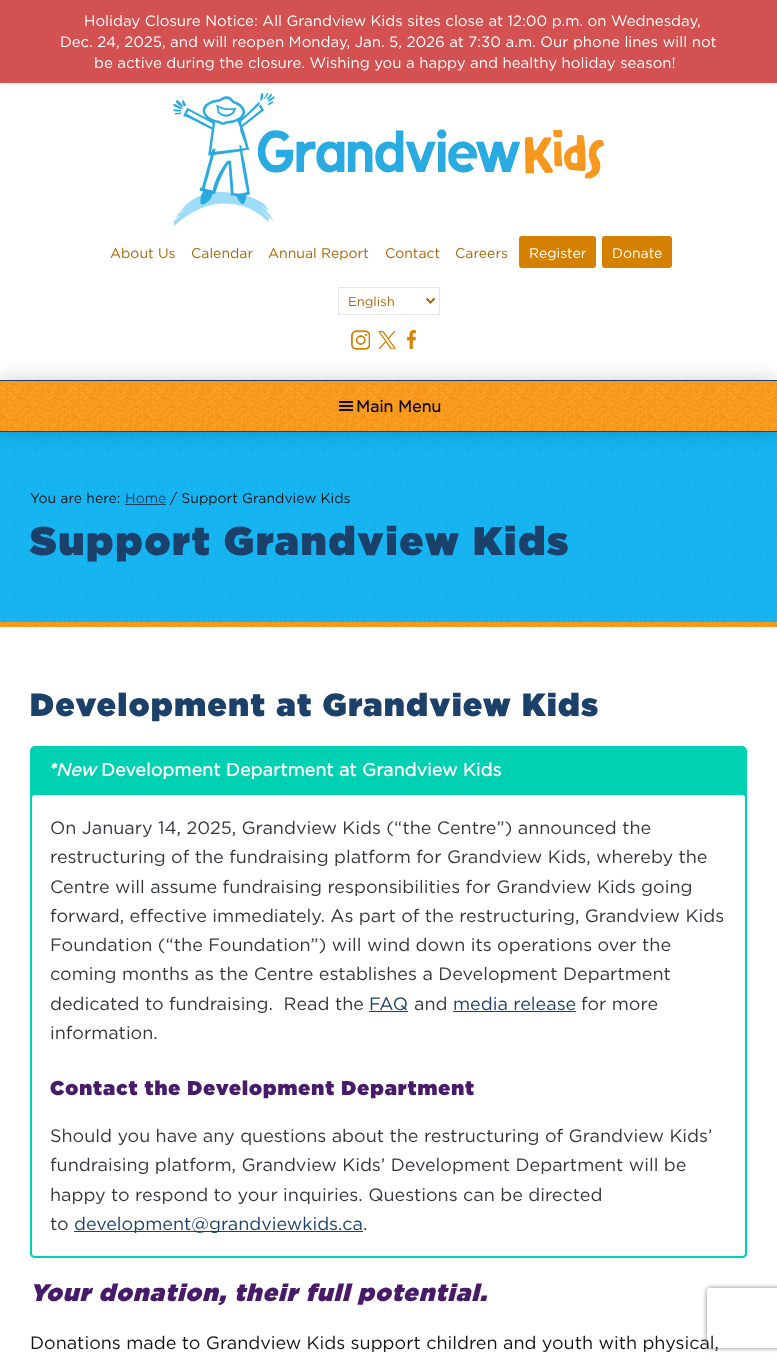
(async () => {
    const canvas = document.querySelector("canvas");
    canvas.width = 777;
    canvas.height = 1362;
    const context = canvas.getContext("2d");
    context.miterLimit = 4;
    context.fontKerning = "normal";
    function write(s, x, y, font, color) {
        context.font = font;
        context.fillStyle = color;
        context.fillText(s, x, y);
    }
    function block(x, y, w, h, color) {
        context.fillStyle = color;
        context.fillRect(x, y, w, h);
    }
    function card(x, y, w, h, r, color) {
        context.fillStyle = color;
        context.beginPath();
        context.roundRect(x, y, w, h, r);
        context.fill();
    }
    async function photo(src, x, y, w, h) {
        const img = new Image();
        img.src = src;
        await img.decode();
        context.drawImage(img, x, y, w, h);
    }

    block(0, 0, 777, 1362, "rgb(255, 255, 255)");
    context.fillStyle = "rgba(0, 0, 0, 0.05)";
    context.filter = "blur(2px)";
    context.beginPath();
    context.rect(0, 3, 777, 83);
    context.fill();
    context.filter = "none";
    block(0, 0, 777, 83, "rgb(211, 81, 81)");
    write("Holiday Closure Notice: All Grandview Kids sites close at 12:00 p.m. on Wednesday,", 84, 26, "15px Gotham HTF", "rgb(255, 255, 255)");
    write("Dec. 24, 2025, and will reopen Monday, Jan. 5, 2026 at 7:30 a.m. Our phone lines will not", 60, 47, "15px Gotham HTF", "rgb(255, 255, 255)");
    write("be active during the closure. Wishing you a happy and healthy holiday season!", 94, 68, "15px Gotham HTF", "rgb(255, 255, 255)");
    await photo("media/1.png", 173, 93, 431, 133);
    write("About Us", 110, 258, "14px Gotham HTF", "rgb(172, 100, 6)");
    write("Calendar", 191, 258, "14px Gotham HTF", "rgb(172, 100, 6)");
    write("Annual Report", 268, 258, "14px Gotham HTF", "rgb(172, 100, 6)");
    write("Contact", 385, 258, "14px Gotham HTF", "rgb(172, 100, 6)");
    write("Careers", 455, 258, "14px Gotham HTF", "rgb(172, 100, 6)");
    card(519, 236, 77, 32, 3, "rgb(214, 128, 0)");
    write("Register", 529, 258, "14px Gotham HTF", "rgb(255, 255, 255)");
    card(602, 236, 70, 32, 3, "rgb(214, 128, 0)");
    write("Donate", 612, 258, "14px Gotham HTF", "rgb(255, 255, 255)");
    context.strokeStyle = "rgb(231, 231, 231)";
    context.strokeRect(338.5, 287.5, 101, 27);
    context.beginPath();
    context.moveTo(426.5, 298.5);
    context.lineTo(430.5, 302.5);
    context.lineTo(434.5, 298.5);
    context.strokeStyle = "rgb(172, 100, 6)";
    context.lineWidth = 2;
    context.stroke();
    write("English", 348, 306, "13px Gotham HTF", "rgb(172, 100, 6)");
    await photo("media/2.png", 351, 330, 19, 20);
    await photo("media/3.png", 378, 331, 18, 18);
    await photo("media/4.png", 407, 330, 9, 19);
    await photo("media/7.png", 0, 432, 777, 190);
    context.fillStyle = "rgba(0, 0, 0, 0.2)";
    context.filter = "blur(10px)";
    context.beginPath();
    context.rect(0, 380, 777, 52);
    context.fill();
    context.filter = "none";
    await photo("media/5.png", 0, 381, 777, 50);
    block(0, 380, 777, 1, "rgb(27, 64, 106)");
    block(0, 431, 777, 1, "rgb(27, 64, 106)");
    await photo("media/6.png", 339, 401, 14, 10);
    write("Main Menu", 356, 412, "bold 16px Gotham HTF", "rgb(17, 17, 17)");
    write("You are here:", 30, 503, "14px Gotham HTF", "rgb(17, 17, 17)");
    write("Home", 125, 503, "14px Gotham HTF", "rgb(27, 64, 106)");
    block(125, 504, 41, 1, "rgb(27, 64, 106)");
    write("/ Support Grandview Kids", 170, 503, "14px Gotham HTF", "rgb(17, 17, 17)");
    context.letterSpacing = "2px";
    write("Support Grandview Kids", 30, 555, "800 40px Gotham HTF", "rgb(27, 64, 106)");
    await photo("media/8.png", 0, 622, 777, 5);
    context.letterSpacing = "1.6px";
    write("Development at Grandview Kids", 30, 716, "800 32px Gotham HTF", "rgb(27, 64, 106)");
    card(30, 746, 717, 512, 5, "rgb(0, 209, 178)");
    context.letterSpacing = "0px";
    write("*New", 48, 776, "italic bold 18px Gotham HTF", "rgb(255, 255, 255)");
    write("Development Department at Grandview Kids", 101, 776, "bold 18px Gotham HTF", "rgb(255, 255, 255)");
    context.beginPath();
    context.roundRect(31, 794, 715, 463, 4);
    context.fill();
    context.strokeStyle = "rgb(0, 209, 178)";
    context.stroke();
    write("On January 14, 2025, Grandview Kids (“the Centre”) announced the", 50, 834, "18px Gotham HTF", "rgb(50, 55, 60)");
    write("restructuring of the fundraising platform for Grandview Kids, whereby the", 50, 863, "18px Gotham HTF", "rgb(50, 55, 60)");
    write("Centre will assume fundraising responsibilities for Grandview Kids going", 50, 893, "18px Gotham HTF", "rgb(50, 55, 60)");
    write("forward, effective immediately. As part of the restructuring, Grandview Kids", 50, 922, "18px Gotham HTF", "rgb(50, 55, 60)");
    write("Foundation (“the Foundation”) will wind down its operations over the", 50, 951, "18px Gotham HTF", "rgb(50, 55, 60)");
    write("coming months as the Centre establishes a Development Department", 50, 980, "18px Gotham HTF", "rgb(50, 55, 60)");
    write("dedicated to fundraising.  Read the", 50, 1010, "18px Gotham HTF", "rgb(50, 55, 60)");
    write("FAQ", 369, 1010, "18px Gotham HTF", "rgb(27, 64, 106)");
    block(369, 1011, 39, 1, "rgb(27, 64, 106)");
    write("and", 414, 1010, "18px Gotham HTF", "rgb(50, 55, 60)");
    write("media release", 453, 1010, "18px Gotham HTF", "rgb(27, 64, 106)");
    block(453, 1011, 123, 1, "rgb(27, 64, 106)");
    write("for more", 581, 1010, "18px Gotham HTF", "rgb(50, 55, 60)");
    write("information.", 50, 1039, "18px Gotham HTF", "rgb(50, 55, 60)");
    context.letterSpacing = "1px";
    write("Contact the Development Department", 50, 1095, "800 20px Gotham HTF", "rgb(72, 27, 106)");
    context.letterSpacing = "0px";
    write("Should you have any questions about the restructuring of Grandview Kids’", 50, 1142, "18px Gotham HTF", "rgb(50, 55, 60)");
    write("fundraising platform, Grandview Kids’ Development Department will be", 50, 1171, "18px Gotham HTF", "rgb(50, 55, 60)");
    write("happy to respond to your inquiries. Questions can be directed", 50, 1201, "18px Gotham HTF", "rgb(50, 55, 60)");
    write("to", 50, 1230, "18px Gotham HTF", "rgb(50, 55, 60)");
    block(74, 1231, 289, 1, "rgb(27, 64, 106)");
    write("development@grandviewkids.ca", 74, 1230, "18px Gotham HTF", "rgb(27, 64, 106)");
    write(".", 363, 1230, "18px Gotham HTF", "rgb(50, 55, 60)");
    context.letterSpacing = "1.2px";
    write("Your donation, their full potential.", 30, 1301, "italic 800 24px Gotham HTF", "rgb(72, 27, 106)");
    context.letterSpacing = "0px";
    write("Donations made to Grandview Kids support children and youth with physical,", 30, 1349, "18px Gotham HTF", "rgb(17, 17, 17)");
    context.save();
    context.beginPath();
    context.moveTo(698, 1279);
    context.lineTo(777, 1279);
    context.lineTo(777, 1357);
    context.lineTo(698, 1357);
    context.closePath();
    context.moveTo(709, 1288);
    context.lineTo(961, 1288);
    context.bezierCurveTo(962, 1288, 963, 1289, 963, 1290);
    context.lineTo(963, 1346);
    context.bezierCurveTo(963, 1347, 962, 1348, 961, 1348);
    context.lineTo(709, 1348);
    context.bezierCurveTo(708, 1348, 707, 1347, 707, 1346);
    context.lineTo(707, 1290);
    context.bezierCurveTo(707, 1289, 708, 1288, 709, 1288);
    context.closePath();
    context.clip("evenodd");
    context.fillStyle = "rgb(128, 128, 128)";
    context.filter = "blur(2.5px)";
    context.beginPath();
    context.roundRect(707, 1288, 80, 60, 2);
    context.fill();
    context.filter = "none";
    context.restore();
})();
